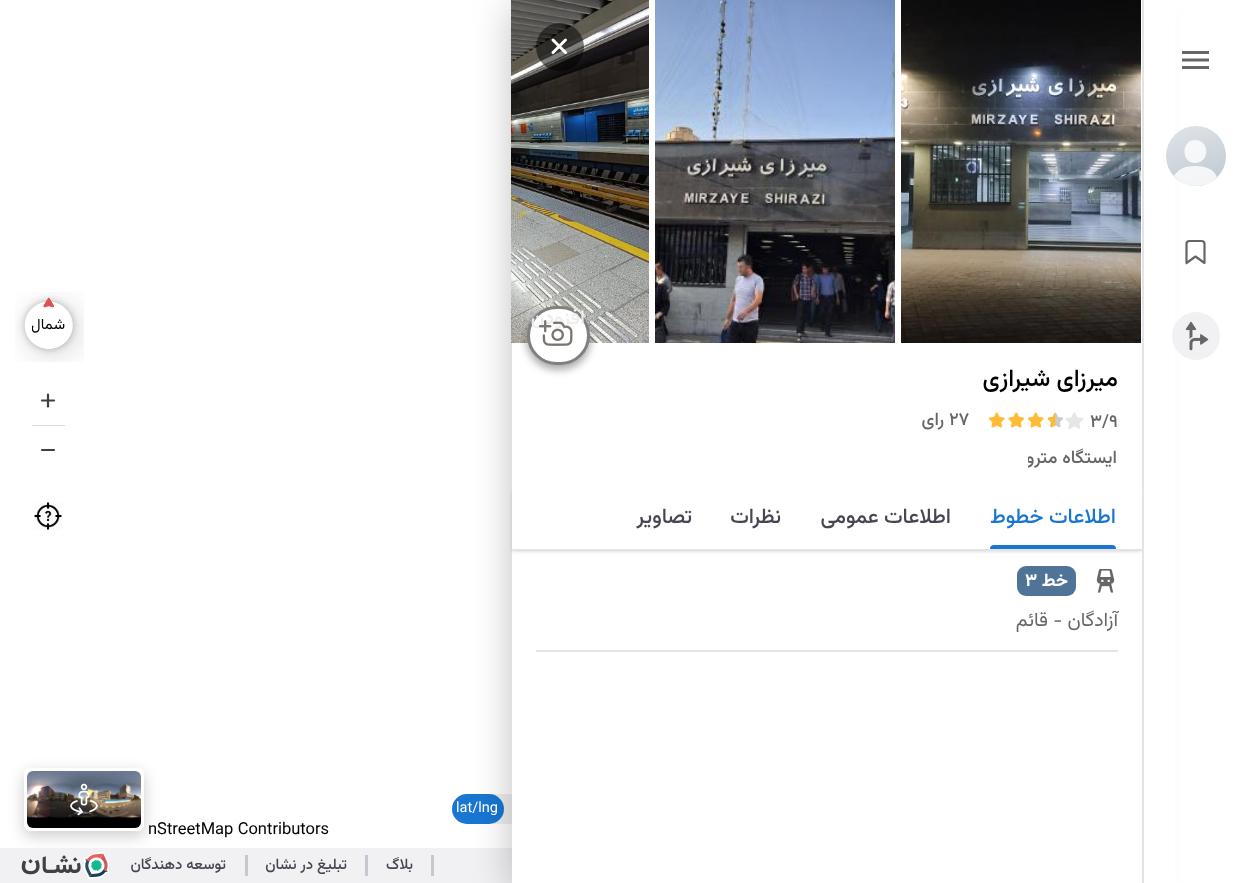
(async () => {
    const canvas = document.querySelector("canvas");
    canvas.width = 1246;
    canvas.height = 883;
    const context = canvas.getContext("2d");
    context.miterLimit = 4;
    context.fontKerning = "normal";
    function write(s, x, y, font, color) {
        context.font = font;
        context.fillStyle = color;
        context.fillText(s, x, y);
    }
    function block(x, y, w, h, color) {
        context.fillStyle = color;
        context.fillRect(x, y, w, h);
    }
    function card(x, y, w, h, r, color) {
        context.fillStyle = color;
        context.beginPath();
        context.roundRect(x, y, w, h, r);
        context.fill();
    }
    async function photo(src, x, y, w, h) {
        const img = new Image();
        img.src = src;
        await img.decode();
        context.drawImage(img, x, y, w, h);
    }
    let gradient;

    block(0, 0, 1246, 883, "rgb(255, 255, 255)");
    card(452, 794, 112, 30, 15, "rgb(238, 238, 238)");
    card(452, 794, 52, 30, 15, "rgb(25, 118, 210)");
    context.fillStyle = "rgba(0, 0, 0, 0.2)";
    context.filter = "blur(7.5px)";
    context.beginPath();
    context.roundRect(24, 773, 120, 63, 6);
    context.fill();
    context.filter = "none";
    block(0, 848, 512, 35, "rgb(241, 241, 243)");
    context.fillStyle = "rgba(0, 0, 0, 0.25)";
    context.filter = "blur(19px)";
    context.beginPath();
    context.rect(512, 6, 630, 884);
    context.fill();
    context.filter = "none";
    block(512, 551, 630, 332, "rgb(255, 255, 255)");
    block(512, 0, 630, 489, "rgb(255, 255, 255)");
    context.fillStyle = "rgba(0, 0, 0, 0.1)";
    context.filter = "blur(1.5px)";
    context.beginPath();
    context.rect(513, 492, 627, 59);
    context.fill();
    context.filter = "none";
    context.fillStyle = "rgba(0, 0, 0, 0.07)";
    context.filter = "blur(2px)";
    context.beginPath();
    context.rect(512, 491, 630, 61);
    context.fill();
    context.filter = "none";
    block(1144, 0, 31, 883, "rgb(255, 255, 255)");
    block(1142, 0, 2, 883, "rgb(227, 227, 232)");
    await photo("media/1.png", 1182, 51, 27, 18);
    gradient = context.createLinearGradient(1187, 129, 1208, 186);
    gradient.addColorStop(0, "rgb(220, 225, 230)");
    gradient.addColorStop(1, "rgb(193, 202, 210)");
    context.fillStyle = gradient;
    context.beginPath();
    context.arc(1196, 156, 30, 0, Math.PI * 2);
    context.fill();
    context.fillStyle = "rgba(255, 255, 255, 0.8)";
    context.beginPath();
    context.moveTo(1195, 166);
    context.bezierCurveTo(1183, 166, 1178, 170, 1174, 176);
    context.bezierCurveTo(1185, 189, 1206, 189, 1217, 177);
    context.bezierCurveTo(1214, 170, 1208, 166, 1195, 166);
    context.closePath();
    context.moveTo(1195, 163);
    context.bezierCurveTo(1210, 163, 1210, 140, 1195, 140);
    context.bezierCurveTo(1181, 140, 1181, 163, 1195, 163);
    context.closePath();
    context.fill("evenodd");
    context.beginPath();
    context.moveTo(1195.5, 256.5);
    context.lineTo(1186.5, 263);
    context.lineTo(1186.5, 244);
    context.bezierCurveTo(1186.5, 242, 1188, 241, 1189.5, 241);
    context.lineTo(1201.5, 241);
    context.bezierCurveTo(1203, 241, 1204.5, 242, 1204.5, 244);
    context.lineTo(1204.5, 263);
    context.closePath();
    context.strokeStyle = "rgb(102, 102, 102)";
    context.lineWidth = 2.2;
    context.lineJoin = "round";
    context.stroke();
    context.fillStyle = "rgb(241, 241, 243)";
    context.beginPath();
    context.arc(1196, 336, 24, 0, Math.PI * 2);
    context.fill();
    await photo("media/2.png", 1185, 321, 24, 30);
    await photo("media/3.png", 901, 0, 240, 343);
    await photo("media/4.png", 655, 0, 240, 343);
    await photo("media/5.png", 511, 0, 138, 343);
    context.fillStyle = "rgba(0, 0, 0, 0.5)";
    context.beginPath();
    context.arc(560, 47, 24, 0, Math.PI * 2);
    context.fill();
    context.beginPath();
    context.moveTo(565.5, 40);
    context.lineTo(553, 52.5);
    context.moveTo(565.5, 52.5);
    context.lineTo(553, 40);
    context.strokeStyle = "rgb(255, 255, 255)";
    context.lineWidth = 3;
    context.lineCap = "round";
    context.lineJoin = "miter";
    context.stroke();
    context.fillStyle = "rgba(0, 0, 0, 0.23)";
    context.filter = "blur(4.5px)";
    context.beginPath();
    context.roundRect(527, 311, 63, 58, 29);
    context.fill();
    context.filter = "none";
    context.fillStyle = "rgba(0, 0, 0, 0.16)";
    context.filter = "blur(4.5px)";
    context.beginPath();
    context.roundRect(527, 311, 63, 58, 29);
    context.fill();
    context.filter = "none";
    context.fillStyle = "rgb(255, 255, 255)";
    context.beginPath();
    context.roundRect(528.5, 307.5, 60, 56, 28);
    context.fill();
    context.strokeStyle = "rgb(128, 128, 128)";
    context.stroke();
    context.direction = "rtl";
    write("افزودن", 585, 324, "500 20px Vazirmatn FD", "rgb(237, 237, 237)");
    await photo("media/6.png", 539, 320, 34, 26);
    write("میرزای شیرازی", 1118, 386, "500 24px Vazirmatn FD", "rgb(0, 0, 0)");
    context.direction = "ltr";
    write("3/9", 1090, 427, "500 18px Vazirmatn FD", "rgb(102, 102, 102)");
    await photo("media/7.png", 1065, 412, 19, 17);
    await photo("media/8.png", 1047, 412, 16, 16);
    await photo("media/9.png", 1027, 412, 17, 16);
    await photo("media/10.png", 1008, 412, 17, 16);
    await photo("media/9.png", 988, 412, 17, 16);
    write("27", 949, 425, "500 18px Vazirmatn FD", "rgb(102, 102, 102)");
    context.direction = "rtl";
    write("رای", 944, 425, "500 18px Vazirmatn FD", "rgb(102, 102, 102)");
    context.save();
    context.beginPath();
    context.rect(1028, 446, 90, 27);
    context.clip();
    write("ایستگاه مترو", 1117, 463, "500 18px Vazirmatn FD", "rgb(102, 102, 102)");
    context.restore();
    block(512, 489, 630, 60, "rgb(255, 255, 255)");
    block(512, 549, 630, 2, "rgb(227, 227, 232)");
    write("اطلاعات خطوط", 1116, 523, "500 21px Vazirmatn FD", "rgb(25, 117, 210)");
    context.fillStyle = "rgb(25, 118, 210)";
    context.beginPath();
    context.roundRect(990, 545, 126, 4, [5, 5, 0, 0]);
    context.fill();
    write("اطلاعات عمومی", 951, 523, "500 21px Vazirmatn FD", "rgb(70, 70, 83)");
    write("نظرات", 781, 523, "500 21px Vazirmatn FD", "rgb(70, 70, 83)");
    write("تصاویر", 692, 523, "500 21px Vazirmatn FD", "rgb(70, 70, 83)");
    block(536, 650, 582, 2, "rgb(227, 227, 232)");
    await photo("media/11.png", 1096, 569, 19, 24);
    card(1017, 566, 59, 30, 9, "rgb(80, 116, 152)");
    write("خط", 1068, 586, "bold 18px Vazirmatn FD", "rgb(255, 255, 255)");
    context.direction = "ltr";
    write("3", 1025, 586, "bold 18px Vazirmatn FD", "rgb(255, 255, 255)");
    context.direction = "rtl";
    write("آزادگان - قائم", 1118, 626, "19.5px Vazirmatn FD", "rgb(102, 102, 102)");
    await photo("media/12.png", 15, 292, 69, 70);
    context.save();
    context.beginPath();
    context.rect(32, 315, 33, 23);
    context.clip();
    write("شمال", 65, 329, "15px Vazirmatn FD", "rgb(0, 0, 0)");
    context.restore();
    context.beginPath();
    context.moveTo(42, 400.5);
    context.lineTo(54, 400.5);
    context.moveTo(48, 394.5);
    context.lineTo(48, 406.5);
    context.strokeStyle = "rgb(64, 64, 64)";
    context.lineWidth = 2.2;
    context.stroke();
    block(32, 425, 33, 1, "rgb(217, 217, 217)");
    context.beginPath();
    context.moveTo(42, 450);
    context.lineTo(54, 450);
    context.stroke();
    await photo("media/13.png", 34, 502, 28, 28);
    context.direction = "ltr";
    write("lat/lng", 456, 812, "14.5px Vazirmatn FD", "rgb(255, 255, 255)");
    card(24, 768, 120, 63, 6, "rgb(255, 255, 255)");
    await photo("media/14.png", 27, 771, 114, 57);
    await photo("media/15.png", 70, 783, 28, 33);
    write("nStreetMap Contributors", 148, 834, "16.5px Vazirmatn FD", "rgb(0, 0, 0)");
    block(431, 855, 3, 21, "rgb(199, 199, 209)");
    context.direction = "rtl";
    write("بلاگ", 413, 869, "500 15px Vazirmatn FD", "rgb(70, 70, 83)");
    block(365, 855, 3, 21, "rgb(199, 199, 209)");
    write("تبلیغ در نشان", 347, 869, "500 15px Vazirmatn FD", "rgb(70, 70, 83)");
    block(245, 855, 3, 21, "rgb(199, 199, 209)");
    write("توسعه دهندگان", 226, 869, "500 15px Vazirmatn FD", "rgb(70, 70, 83)");
    await photo("media/16.png", 21, 852, 89, 27);
})();
